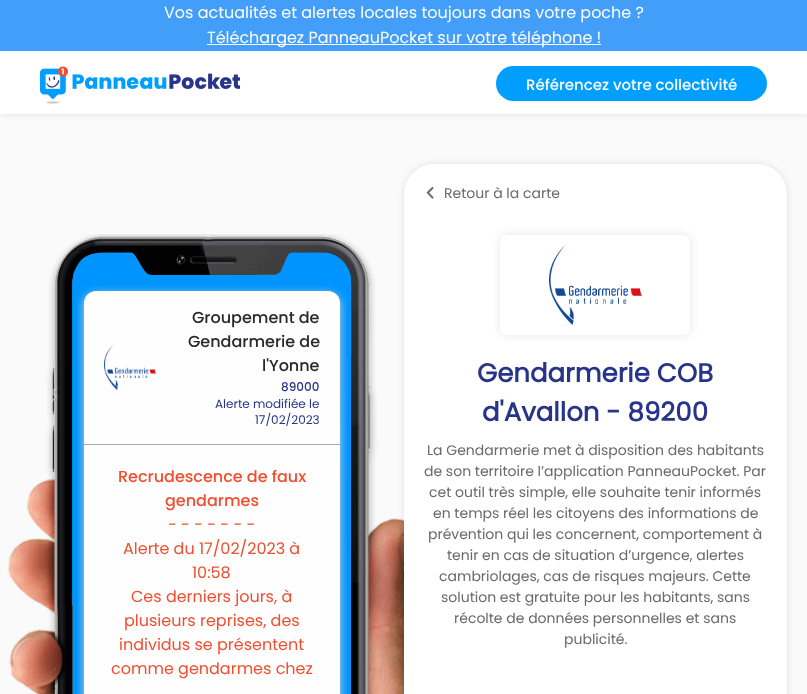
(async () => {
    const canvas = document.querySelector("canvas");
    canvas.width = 807;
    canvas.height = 694;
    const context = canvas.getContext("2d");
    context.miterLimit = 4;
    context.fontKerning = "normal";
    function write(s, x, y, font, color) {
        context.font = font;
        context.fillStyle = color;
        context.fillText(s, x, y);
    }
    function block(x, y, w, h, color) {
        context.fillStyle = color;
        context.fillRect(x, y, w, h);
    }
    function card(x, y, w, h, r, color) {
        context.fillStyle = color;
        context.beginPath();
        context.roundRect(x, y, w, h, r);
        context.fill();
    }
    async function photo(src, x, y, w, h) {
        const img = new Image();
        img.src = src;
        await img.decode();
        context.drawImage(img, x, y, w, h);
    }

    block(0, 0, 807, 694, "rgb(250, 250, 250)");
    context.fillStyle = "rgba(0, 0, 0, 0.1)";
    context.filter = "blur(3.5px)";
    context.beginPath();
    context.rect(0, 0, 807, 114);
    context.fill();
    context.filter = "none";
    block(0, 51, 807, 63, "rgb(255, 255, 255)");
    block(0, 0, 807, 51, "rgb(66, 158, 248)");
    write("Vos actualités et alertes locales toujours dans votre poche ?", 164, 18, "16px Poppins", "rgb(255, 255, 255)");
    block(207, 44, 394, 1, "rgb(255, 255, 255)");
    write("Téléchargez PanneauPocket sur votre téléphone !", 207, 43, "16px Poppins", "rgb(255, 255, 255)");
    await photo("media/1.png", 40, 66, 200, 38);
    card(496, 66, 271, 35, 17.5, "rgb(0, 158, 255)");
    write("Référencez votre collectivité", 526, 90, "500 15px Poppins", "rgb(255, 255, 255)");
    await photo("media/2.png", 7, 234, 397, 460);
    context.save();
    context.beginPath();
    context.rect(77, 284, 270, 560);
    context.clip();
    context.fillStyle = "rgb(211, 211, 211)";
    context.filter = "blur(5px)";
    context.beginPath();
    context.roundRect(84, 294, 256, 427, 12);
    context.fill();
    context.filter = "none";
    context.restore();
    context.fillStyle = "rgb(254, 254, 254)";
    context.beginPath();
    context.roundRect(84, 291, 256, 154, [12, 12, 0, 0]);
    context.fill();
    block(84, 444, 256, 1, "rgb(170, 170, 170)");
    await photo("media/3.png", 104, 345, 52, 45);
    write("Groupement de", 192, 323, "500 16px Poppins", "rgb(41, 41, 41)");
    write("Gendarmerie de", 188, 347, "500 16px Poppins", "rgb(41, 41, 41)");
    write("l'Yonne", 262, 371, "500 16px Poppins", "rgb(41, 41, 41)");
    write("89000", 281, 391, "500 12px Poppins", "rgb(40, 52, 138)");
    write("Alerte modifiée le", 215, 408, "12px Poppins", "rgb(40, 52, 138)");
    write("17/02/2023", 255, 424, "12px Poppins", "rgb(40, 52, 138)");
    block(84, 445, 256, 249, "rgb(254, 254, 254)");
    write("Recrudescence de faux", 118, 482, "500 16px Poppins", "rgb(240, 78, 47)");
    write("gendarmes", 165, 506, "500 16px Poppins", "rgb(240, 78, 47)");
    write("- - - - - - -", 168, 530, "16px Poppins", "rgb(240, 78, 47)");
    write("Alerte du 17/02/2023 à", 123, 554, "16px Poppins", "rgb(240, 78, 47)");
    write("10:58", 192, 578, "16px Poppins", "rgb(240, 78, 47)");
    write("Ces derniers jours, à", 131, 602, "16px Poppins", "rgb(240, 78, 47)");
    write("plusieurs reprises, des", 124, 626, "16px Poppins", "rgb(240, 78, 47)");
    write("individus se présentent", 119, 650, "16px Poppins", "rgb(240, 78, 47)");
    write("comme gendarmes chez", 111, 674, "16px Poppins", "rgb(240, 78, 47)");
    context.fillStyle = "rgba(0, 0, 0, 0.1)";
    context.filter = "blur(3.5px)";
    context.beginPath();
    context.roundRect(404, 164, 383, 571, 30);
    context.fill();
    context.filter = "none";
    card(404, 164, 383, 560, 30, "rgb(255, 255, 255)");
    await photo("media/4.png", 426, 186, 8, 13);
    write("Retour à la carte", 444, 198, "14px Poppins", "rgb(105, 105, 105)");
    context.save();
    context.beginPath();
    context.moveTo(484, 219);
    context.lineTo(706, 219);
    context.lineTo(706, 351);
    context.lineTo(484, 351);
    context.closePath();
    context.moveTo(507, 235);
    context.lineTo(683, 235);
    context.bezierCurveTo(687, 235, 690, 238, 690, 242);
    context.lineTo(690, 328);
    context.bezierCurveTo(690, 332, 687, 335, 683, 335);
    context.lineTo(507, 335);
    context.bezierCurveTo(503, 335, 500, 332, 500, 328);
    context.lineTo(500, 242);
    context.bezierCurveTo(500, 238, 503, 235, 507, 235);
    context.closePath();
    context.clip("evenodd");
    context.fillStyle = "rgba(0, 0, 0, 0.1)";
    context.filter = "blur(5px)";
    context.beginPath();
    context.roundRect(500, 235, 190, 100, 7);
    context.fill();
    context.filter = "none";
    context.restore();
    await photo("media/5.png", 549, 245, 93, 80);
    write("Gendarmerie COB", 477, 382, "bold 26px Poppins", "rgb(40, 52, 138)");
    write("d'Avallon - 89200", 482, 421, "bold 26px Poppins", "rgb(40, 52, 138)");
    write("La Gendarmerie met à disposition des habitants", 427, 455, "14px Poppins", "rgb(105, 105, 105)");
    write("de son territoire l’application PanneauPocket. Par", 424, 476, "14px Poppins", "rgb(105, 105, 105)");
    write("cet outil très simple, elle souhaite tenir informés", 429, 497, "14px Poppins", "rgb(105, 105, 105)");
    write("en temps réel les citoyens des informations de", 433, 518, "14px Poppins", "rgb(105, 105, 105)");
    write("prévention qui les concernent, comportement à", 428, 539, "14px Poppins", "rgb(105, 105, 105)");
    write("tenir en cas de situation d’urgence, alertes", 447, 560, "14px Poppins", "rgb(105, 105, 105)");
    write("cambriolages, cas de risques majeurs. Cette", 439, 581, "14px Poppins", "rgb(105, 105, 105)");
    write("solution est gratuite pour les habitants, sans", 441, 602, "14px Poppins", "rgb(105, 105, 105)");
    write("récolte de données personnelles et sans", 454, 623, "14px Poppins", "rgb(105, 105, 105)");
    write("publicité.", 564, 644, "14px Poppins", "rgb(105, 105, 105)");
})();
